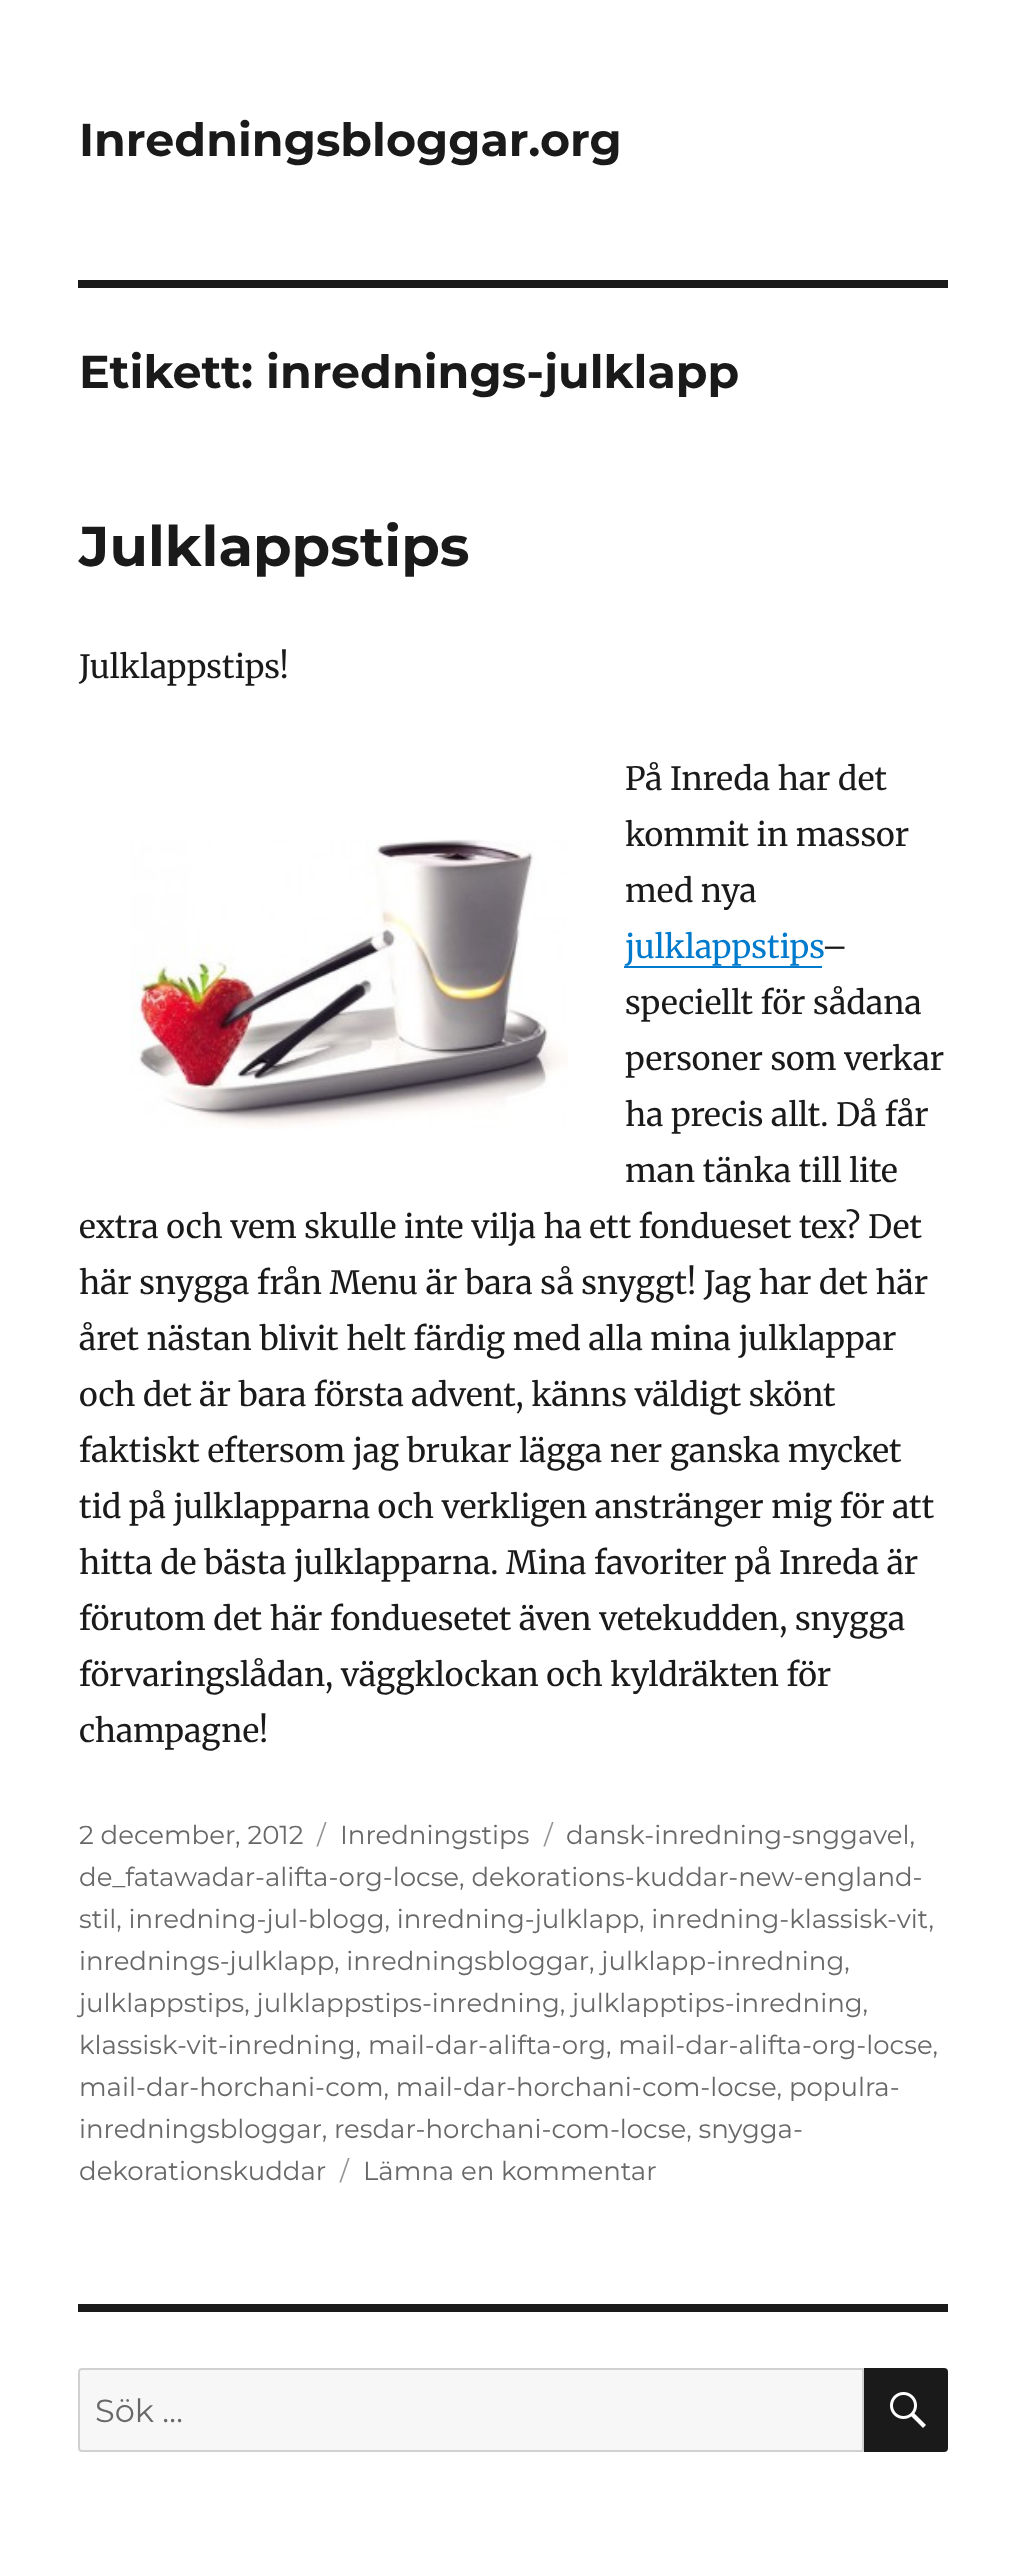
(async () => {
    const canvas = document.querySelector("canvas");
    canvas.width = 1025;
    canvas.height = 2551;
    const context = canvas.getContext("2d");
    context.miterLimit = 4;
    context.fontKerning = "normal";
    function write(s, x, y, font, color) {
        context.font = font;
        context.fillStyle = color;
        context.fillText(s, x, y);
    }
    function block(x, y, w, h, color) {
        context.fillStyle = color;
        context.fillRect(x, y, w, h);
    }
    async function photo(src, x, y, w, h) {
        const img = new Image();
        img.src = src;
        await img.decode();
        context.drawImage(img, x, y, w, h);
    }

    block(0, 0, 1025, 2551, "rgb(255, 255, 255)");
    write("Inredningsbloggar.org", 79, 156, "bold 46px Montserrat", "rgb(26, 26, 26)");
    block(78, 280, 870, 8, "rgb(26, 26, 26)");
    write("Etikett: inrednings-julklapp", 79, 388, "bold 46px Montserrat", "rgb(26, 26, 26)");
    write("Julklappstips", 79, 566, "bold 56px Montserrat", "rgb(26, 26, 26)");
    write("Julklappstips!", 79, 678, "32px Merriweather", "rgb(26, 26, 26)");
    write("På Inreda har det", 625, 790, "32px Merriweather", "rgb(26, 26, 26)");
    write("kommit in massor", 625, 846, "32px Merriweather", "rgb(26, 26, 26)");
    await photo("media/1.png", 130, 839, 438, 290);
    write("med nya", 625, 902, "32px Merriweather", "rgb(26, 26, 26)");
    write("julklappstips", 625, 958, "32px Merriweather", "rgb(0, 122, 204)");
    block(624, 966, 198, 2, "rgb(0, 122, 204)");
    write("–", 822, 958, "32px Merriweather", "rgb(26, 26, 26)");
    write("speciellt för sådana", 625, 1014, "32px Merriweather", "rgb(26, 26, 26)");
    write("personer som verkar", 625, 1070, "32px Merriweather", "rgb(26, 26, 26)");
    write("ha precis allt. Då får", 625, 1126, "32px Merriweather", "rgb(26, 26, 26)");
    write("man tänka till lite", 625, 1182, "32px Merriweather", "rgb(26, 26, 26)");
    write("extra och vem skulle inte vilja ha ett fondueset tex? Det", 79, 1238, "32px Merriweather", "rgb(26, 26, 26)");
    write("här snygga från Menu är bara så snyggt! Jag har det här", 79, 1294, "32px Merriweather", "rgb(26, 26, 26)");
    write("året nästan blivit helt färdig med alla mina julklappar", 79, 1350, "32px Merriweather", "rgb(26, 26, 26)");
    write("och det är bara första advent, känns väldigt skönt", 79, 1406, "32px Merriweather", "rgb(26, 26, 26)");
    write("faktiskt eftersom jag brukar lägga ner ganska mycket", 79, 1462, "32px Merriweather", "rgb(26, 26, 26)");
    write("tid på julklapparna och verkligen anstränger mig för att", 79, 1518, "32px Merriweather", "rgb(26, 26, 26)");
    write("hitta de bästa julklapparna. Mina favoriter på Inreda är", 79, 1574, "32px Merriweather", "rgb(26, 26, 26)");
    write("förutom det här fonduesetet även vetekudden, snygga", 79, 1630, "32px Merriweather", "rgb(26, 26, 26)");
    write("förvaringslådan, väggklockan och kyldräkten för", 79, 1686, "32px Merriweather", "rgb(26, 26, 26)");
    write("champagne!", 79, 1742, "32px Merriweather", "rgb(26, 26, 26)");
    write("2 december, 2012", 79, 1844, "26px Montserrat", "rgb(104, 104, 104)");
    write("/", 317, 1844, "26px Montserrat", "rgb(149, 149, 149)");
    write("Inredningstips", 340, 1844, "26px Montserrat", "rgb(104, 104, 104)");
    write("/", 544, 1844, "26px Montserrat", "rgb(149, 149, 149)");
    write("dansk-inredning-snggavel,", 566, 1844, "26px Montserrat", "rgb(104, 104, 104)");
    write("de_fatawadar-alifta-org-locse, dekorations-kuddar-new-england-", 79, 1886, "26px Montserrat", "rgb(104, 104, 104)");
    write("stil, inredning-jul-blogg, inredning-julklapp", 79, 1928, "26px Montserrat", "rgb(104, 104, 104)");
    write(", inredning-klassisk-vit,", 639, 1928, "26px Montserrat", "rgb(104, 104, 104)");
    write("inrednings-julklapp", 79, 1970, "26px Montserrat", "rgb(104, 104, 104)");
    write(", inredningsbloggar, julklapp-inredning,", 334, 1970, "26px Montserrat", "rgb(104, 104, 104)");
    write("julklappstips, julklappstips-inredning, julklapptips-inredning,", 79, 2012, "26px Montserrat", "rgb(104, 104, 104)");
    write("klassisk-vit-inredning, mail-dar-alifta-org, mail-dar-alifta-org-locse,", 79, 2054, "26px Montserrat", "rgb(104, 104, 104)");
    write("mail-dar-horchani-com, mail-dar-horchani-com-locse, populra-", 79, 2096, "26px Montserrat", "rgb(104, 104, 104)");
    write("inredningsbloggar, resdar-horchani-com-locse, snygga-", 79, 2138, "26px Montserrat", "rgb(104, 104, 104)");
    write("dekorationskuddar", 79, 2180, "26px Montserrat", "rgb(104, 104, 104)");
    write("/", 340, 2180, "26px Montserrat", "rgb(149, 149, 149)");
    write("Lämna en kommentar", 363, 2180, "26px Montserrat", "rgb(104, 104, 104)");
    block(78, 2304, 870, 8, "rgb(26, 26, 26)");
    context.fillStyle = "rgb(247, 247, 247)";
    context.beginPath();
    context.roundRect(79, 2369, 784, 82, [3, 0, 0, 3]);
    context.fill();
    context.strokeStyle = "rgb(209, 209, 209)";
    context.lineWidth = 2;
    context.stroke();
    write("Sök …", 95, 2422, "32px Montserrat", "rgb(104, 104, 104)");
    context.fillStyle = "rgb(26, 26, 26)";
    context.beginPath();
    context.roundRect(864, 2368, 84, 84, [0, 4, 4, 0]);
    context.fill();
    await photo("media/2.png", 890, 2392, 36, 36);
})();
